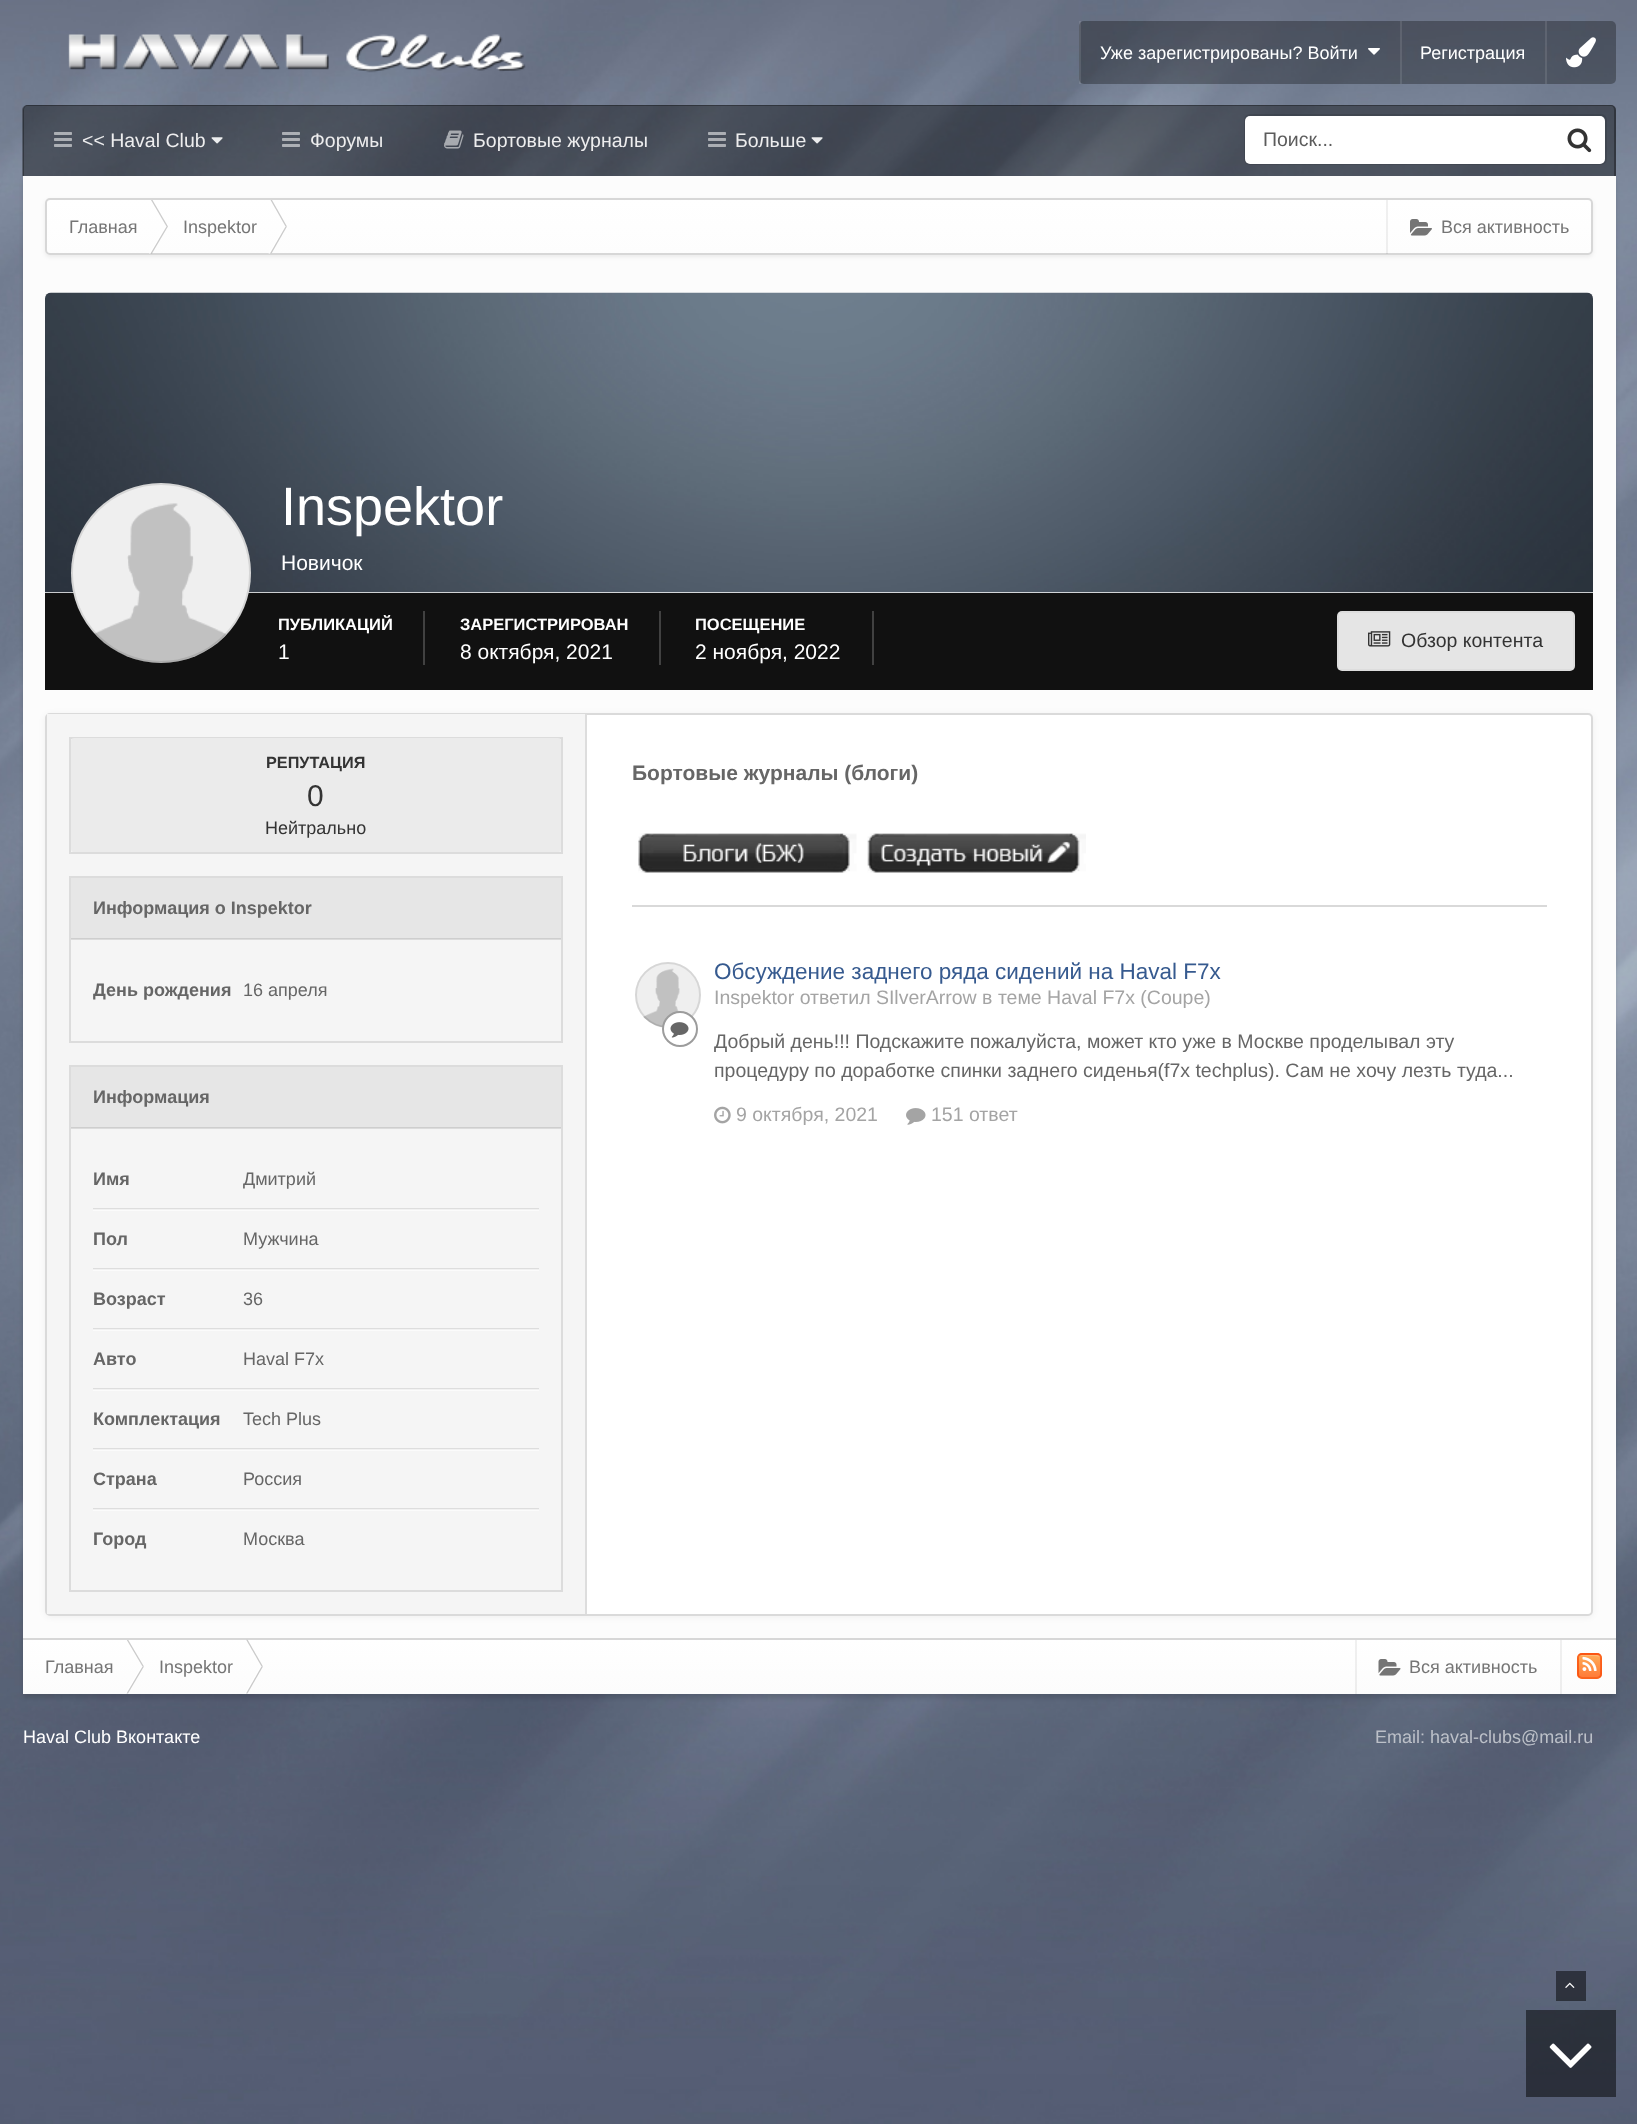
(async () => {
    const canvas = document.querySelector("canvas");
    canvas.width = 1637;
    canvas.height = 2124;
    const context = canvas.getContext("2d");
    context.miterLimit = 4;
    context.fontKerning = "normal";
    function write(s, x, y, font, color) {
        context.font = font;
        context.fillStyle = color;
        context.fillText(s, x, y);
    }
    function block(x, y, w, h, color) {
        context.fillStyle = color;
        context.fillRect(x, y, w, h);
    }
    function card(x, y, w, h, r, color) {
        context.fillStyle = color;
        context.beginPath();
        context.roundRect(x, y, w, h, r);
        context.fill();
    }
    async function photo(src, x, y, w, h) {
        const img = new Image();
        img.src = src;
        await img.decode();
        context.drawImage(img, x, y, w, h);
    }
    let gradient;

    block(0, 0, 1637, 2124, "rgb(255, 255, 255)");
    await photo("media/1.png", 0, 0, 1637, 2124);
    await photo("media/2.png", 68, 34, 458, 39);
    card(1079, 21, 537, 63, 5, "rgba(0, 0, 0, 0.3)");
    block(1079, 21, 2, 63, "rgba(255, 255, 255, 0.1)");
    write("Уже зарегистрированы? Войти", 1100, 59, "18px Liberation Sans", "rgb(255, 255, 255)");
    await photo("media/3.png", 1368, 48, 12, 7);
    block(1400, 21, 2, 63, "rgba(255, 255, 255, 0.1)");
    write("Регистрация", 1420, 59, "18px Liberation Sans", "rgb(255, 255, 255)");
    block(1545, 21, 2, 63, "rgba(255, 255, 255, 0.1)");
    await photo("media/4.png", 1566, 37, 30, 31);
    context.fillStyle = "rgba(0, 0, 0, 0.12)";
    context.filter = "blur(2px)";
    context.beginPath();
    context.rect(23, 180, 1593, 1518);
    context.fill();
    context.filter = "none";
    context.fillStyle = "rgba(0, 0, 0, 0.4)";
    context.beginPath();
    context.roundRect(23, 105, 1593, 71, [5, 5, 0, 0]);
    context.fill();
    context.fillStyle = "rgba(0, 0, 0, 0.3)";
    context.beginPath();
    context.moveTo(27, 105);
    context.lineTo(1611, 105);
    context.bezierCurveTo(1613, 105, 1616, 107, 1616, 110);
    context.lineTo(1616, 176);
    context.lineTo(22, 176);
    context.lineTo(22, 110);
    context.bezierCurveTo(22, 107, 25, 105, 27, 105);
    context.closePath();
    context.moveTo(27, 106);
    context.lineTo(1611, 106);
    context.bezierCurveTo(1613, 106, 1614, 108, 1614, 110);
    context.lineTo(1614, 176);
    context.lineTo(24, 176);
    context.lineTo(24, 110);
    context.bezierCurveTo(24, 108, 25, 106, 27, 106);
    context.closePath();
    context.fill("evenodd");
    await photo("media/5.png", 54, 132, 18, 15);
    write("<< Haval Club", 82, 147, "19.5px Liberation Sans", "rgb(237, 237, 238)");
    await photo("media/6.png", 211, 137, 12, 7);
    await photo("media/7.png", 282, 132, 18, 15);
    write("Форумы", 310, 147, "19.5px Liberation Sans", "rgb(237, 237, 238)");
    await photo("media/8.png", 444, 130, 20, 19);
    write("Бортовые журналы", 473, 147, "19.5px Liberation Sans", "rgb(237, 237, 238)");
    await photo("media/9.png", 708, 132, 18, 15);
    write("Больше", 735, 147, "19.5px Liberation Sans", "rgb(237, 237, 238)");
    await photo("media/10.png", 811, 137, 12, 7);
    context.beginPath();
    context.roundRect(1245, 115, 361, 49, 5);
    context.strokeStyle = "rgba(0, 0, 0, 0.1)";
    context.lineWidth = 2;
    context.stroke();
    card(1245, 116, 360, 48, 5, "rgb(255, 255, 255)");
    write("Поиск...", 1263, 146, "19.5px Liberation Sans", "rgb(92, 92, 92)");
    await photo("media/11.png", 1567, 128, 25, 25);
    block(23, 176, 1593, 1462, "rgb(252, 252, 252)");
    context.fillStyle = "rgba(0, 0, 0, 0.07)";
    context.filter = "blur(2px)";
    context.beginPath();
    context.roundRect(45, 200, 1548, 57, 5);
    context.fill();
    context.filter = "none";
    context.save();
    context.beginPath();
    context.roundRect(45, 198, 1548, 57, 5);
    context.clip();
    gradient = context.createLinearGradient(819, 199, 819, 254);
    gradient.addColorStop(0, "rgb(255, 255, 255)");
    gradient.addColorStop(1, "rgb(253, 253, 253)");
    context.fillStyle = gradient;
    context.fillRect(45, 200, 1548, 54);
    context.restore();
    context.beginPath();
    context.roundRect(46, 199, 1546, 55, 4);
    context.strokeStyle = "rgb(215, 215, 215)";
    context.stroke();
    write("Главная", 69, 233, "18px Liberation Sans", "rgb(117, 117, 117)");
    context.fillStyle = "rgb(204, 204, 204)";
    context.beginPath();
    context.moveTo(152.5, 200);
    context.lineTo(151, 200);
    context.lineTo(166.5, 226.5);
    context.lineTo(168, 226.5);
    context.closePath();
    context.fill();
    context.fillStyle = "rgb(255, 255, 255)";
    context.beginPath();
    context.moveTo(165, 226.5);
    context.lineTo(166.5, 226.5);
    context.lineTo(150.5, 253.5);
    context.lineTo(149, 253.5);
    context.closePath();
    context.fill();
    context.fillStyle = "rgba(0, 0, 0, 0.2)";
    context.beginPath();
    context.moveTo(166.5, 226.5);
    context.lineTo(168, 226.5);
    context.lineTo(152, 253.5);
    context.lineTo(150.5, 253.5);
    context.closePath();
    context.fill();
    write("Inspektor", 183, 233, "18px Liberation Sans", "rgb(117, 117, 117)");
    context.fillStyle = "rgb(204, 204, 204)";
    context.beginPath();
    context.moveTo(272, 200);
    context.lineTo(270.5, 200);
    context.lineTo(285.5, 226.5);
    context.lineTo(287, 226.5);
    context.closePath();
    context.fill();
    context.fillStyle = "rgb(255, 255, 255)";
    context.beginPath();
    context.moveTo(284, 226.5);
    context.lineTo(285.5, 226.5);
    context.lineTo(270, 253.5);
    context.lineTo(268.5, 253.5);
    context.closePath();
    context.fill();
    context.fillStyle = "rgb(203, 203, 203)";
    context.beginPath();
    context.moveTo(285.5, 226.5);
    context.lineTo(287, 226.5);
    context.lineTo(271.5, 253.5);
    context.lineTo(270, 253.5);
    context.closePath();
    context.fill();
    block(1386, 200, 2, 54, "rgba(0, 0, 0, 0.06)");
    await photo("media/12.png", 1410, 219, 22, 17);
    write("Вся активность", 1441, 233, "18px Liberation Sans", "rgb(117, 117, 117)");
    context.fillStyle = "rgb(255, 255, 255)";
    context.beginPath();
    context.roundRect(45, 293, 1548, 300, [6, 6, 0, 0]);
    context.fill();
    await photo("media/13.png", 45, 292, 1548, 301);
    block(45, 593, 1548, 97, "rgb(17, 17, 17)");
    context.fillStyle = "rgb(239, 239, 239)";
    context.beginPath();
    context.arc(161, 573, 90, 0, Math.PI * 2);
    context.fill();
    await photo("media/14.png", 94, 503, 132, 160);
    context.beginPath();
    context.arc(161, 573, 89, 0, Math.PI * 2);
    context.strokeStyle = "rgba(0, 0, 0, 0.1)";
    context.stroke();
    write("Inspektor", 281, 525, "54px Liberation Sans", "rgb(255, 255, 255)");
    write("Новичок", 281, 570, "21px Liberation Sans", "rgb(255, 255, 255)");
    block(423, 611, 2, 54, "rgb(65, 65, 65)");
    write("ПУБЛИКАЦИЙ", 278, 630, "bold 16.5px Liberation Sans", "rgb(255, 255, 255)");
    write("1", 278, 659, "21px Liberation Sans", "rgb(255, 255, 255)");
    block(659, 611, 2, 54, "rgb(65, 65, 65)");
    write("ЗАРЕГИСТРИРОВАН", 460, 630, "bold 16.5px Liberation Sans", "rgb(255, 255, 255)");
    write("8 октября, 2021", 460, 659, "21px Liberation Sans", "rgb(255, 255, 255)");
    block(872, 611, 2, 54, "rgb(65, 65, 65)");
    write("ПОСЕЩЕНИЕ", 695, 630, "bold 16.5px Liberation Sans", "rgb(255, 255, 255)");
    write("2 ноября, 2022", 695, 659, "21px Liberation Sans", "rgb(255, 255, 255)");
    card(1337, 611, 238, 60, 5, "rgb(229, 229, 229)");
    context.strokeStyle = "rgba(0, 0, 0, 0.03)";
    context.strokeRect(1338, 612, 236, 58);
    await photo("media/15.png", 1368, 631, 23, 16);
    write("Обзор контента", 1401, 647, "19.5px Liberation Sans", "rgb(51, 51, 51)");
    context.fillStyle = "rgba(0, 0, 0, 0.05)";
    context.filter = "blur(3px)";
    context.beginPath();
    context.roundRect(45, 714, 1548, 903, 5);
    context.fill();
    context.filter = "none";
    context.fillStyle = "rgb(255, 255, 255)";
    context.beginPath();
    context.roundRect(46, 714, 1546, 901, 4);
    context.fill();
    context.strokeStyle = "rgb(218, 218, 218)";
    context.stroke();
    block(47, 714, 538, 900, "rgb(245, 245, 245)");
    block(585, 714, 2, 900, "rgb(221, 221, 221)");
    context.strokeStyle = "rgba(0, 0, 0, 0.1)";
    context.strokeRect(70, 738, 492, 115);
    card(71, 738, 490, 114, 3, "rgb(235, 235, 235)");
    write("РЕПУТАЦИЯ", 266, 768, "bold 16.25px Liberation Sans", "rgb(51, 51, 51)");
    write("0", 307, 806, "30px Liberation Sans", "rgb(51, 51, 51)");
    write("Нейтрально", 265, 834, "18px Liberation Sans", "rgb(51, 51, 51)");
    context.strokeRect(70, 877, 492, 165);
    block(71, 878, 490, 61, "rgb(230, 230, 230)");
    block(71, 938, 490, 2, "rgba(0, 0, 0, 0.1)");
    write("Информация о Inspektor", 93, 914, "bold 18px Liberation Sans", "rgb(102, 102, 102)");
    write("День рождения", 93, 996, "bold 18px Liberation Sans", "rgb(102, 102, 102)");
    write("16 апреля", 243, 996, "18px Liberation Sans", "rgb(102, 102, 102)");
    context.strokeRect(70, 1066, 492, 525);
    block(71, 1067, 490, 61, "rgb(230, 230, 230)");
    block(71, 1127, 490, 2, "rgba(0, 0, 0, 0.1)");
    write("Информация", 93, 1103, "bold 18px Liberation Sans", "rgb(102, 102, 102)");
    block(93, 1208, 446, 2, "rgb(221, 221, 221)");
    write("Имя", 93, 1185, "bold 18px Liberation Sans", "rgb(102, 102, 102)");
    write("Дмитрий", 243, 1185, "18px Liberation Sans", "rgb(102, 102, 102)");
    block(93, 1209, 446, 2, "rgba(255, 255, 255, 0.6)");
    block(93, 1268, 446, 2, "rgb(221, 221, 221)");
    write("Пол", 93, 1245, "bold 18px Liberation Sans", "rgb(102, 102, 102)");
    write("Мужчина", 243, 1245, "18px Liberation Sans", "rgb(102, 102, 102)");
    block(93, 1269, 446, 2, "rgba(255, 255, 255, 0.6)");
    block(93, 1328, 446, 2, "rgb(221, 221, 221)");
    write("Возраст", 93, 1305, "bold 18px Liberation Sans", "rgb(102, 102, 102)");
    write("36", 243, 1305, "18px Liberation Sans", "rgb(102, 102, 102)");
    block(93, 1329, 446, 2, "rgba(255, 255, 255, 0.6)");
    block(93, 1388, 446, 2, "rgb(221, 221, 221)");
    write("Авто", 93, 1365, "bold 18px Liberation Sans", "rgb(102, 102, 102)");
    write("Haval F7x", 243, 1365, "18px Liberation Sans", "rgb(102, 102, 102)");
    block(93, 1389, 446, 2, "rgba(255, 255, 255, 0.6)");
    block(93, 1448, 446, 2, "rgb(221, 221, 221)");
    write("Комплектация", 93, 1425, "bold 18px Liberation Sans", "rgb(102, 102, 102)");
    write("Tech Plus", 243, 1425, "18px Liberation Sans", "rgb(102, 102, 102)");
    block(93, 1449, 446, 2, "rgba(255, 255, 255, 0.6)");
    block(93, 1508, 446, 2, "rgb(221, 221, 221)");
    write("Страна", 93, 1485, "bold 18px Liberation Sans", "rgb(102, 102, 102)");
    write("Россия", 243, 1485, "18px Liberation Sans", "rgb(102, 102, 102)");
    block(93, 1509, 446, 2, "rgba(255, 255, 255, 0.6)");
    write("Город", 93, 1545, "bold 18px Liberation Sans", "rgb(102, 102, 102)");
    write("Москва", 243, 1545, "18px Liberation Sans", "rgb(102, 102, 102)");
    write("Бортовые журналы (блоги)", 632, 780, "bold 21px Liberation Sans", "rgb(102, 102, 102)");
    await photo("media/16.png", 638, 833, 219, 40);
    await photo("media/17.png", 867, 833, 219, 40);
    block(632, 905, 915, 2, "rgb(217, 217, 217)");
    context.fillStyle = "rgb(239, 239, 239)";
    context.beginPath();
    context.arc(668, 995, 33, 0, Math.PI * 2);
    context.fill();
    await photo("media/18.png", 643, 968, 38, 59);
    context.beginPath();
    context.arc(668, 995, 32, 0, Math.PI * 2);
    context.stroke();
    write("Обсуждение заднего ряда сидений на Haval F7x", 714, 979, "22.5px Liberation Sans", "rgb(54, 90, 143)");
    write("Inspektor ответил SIlverArrow в теме Haval F7x (Coupe)", 714, 1004, "19.5px Liberation Sans", "rgb(164, 164, 164)");
    context.fillStyle = "rgb(255, 255, 255)";
    context.beginPath();
    context.arc(680, 1029, 17, 0, Math.PI * 2);
    context.fill();
    context.strokeStyle = "rgb(156, 156, 156)";
    context.stroke();
    await photo("media/19.png", 670, 1022, 19, 16);
    write("Добрый день!!! Подскажите пожалуйста, может кто уже в Москве проделывал эту", 714, 1048, "19.5px Liberation Sans", "rgb(102, 102, 102)");
    write("процедуру по доработке спинки заднего сиденья(f7x techplus). Сам не хочу лезть туда...", 714, 1077, "19.5px Liberation Sans", "rgb(102, 102, 102)");
    await photo("media/20.png", 714, 1106, 17, 18);
    write("9 октября, 2021", 736, 1121, "19.5px Liberation Sans", "rgb(164, 164, 164)");
    await photo("media/21.png", 906, 1108, 20, 17);
    write("151 ответ", 931, 1121, "19.5px Liberation Sans", "rgb(164, 164, 164)");
    gradient = context.createLinearGradient(819, 1640, 819, 1694);
    gradient.addColorStop(0, "rgb(255, 255, 255)");
    gradient.addColorStop(1, "rgb(252, 252, 252)");
    context.fillStyle = gradient;
    context.fillRect(23, 1640, 1593, 54);
    block(23, 1638, 1593, 2, "rgb(215, 215, 215)");
    write("Главная", 45, 1673, "18px Liberation Sans", "rgb(117, 117, 117)");
    context.save();
    context.beginPath();
    context.rect(23, 1640, 1332, 54);
    context.clip();
    context.fillStyle = "rgb(203, 203, 203)";
    context.beginPath();
    context.moveTo(126.5, 1639.5);
    context.lineTo(128, 1639.5);
    context.lineTo(144, 1666.5);
    context.lineTo(142.5, 1666.5);
    context.closePath();
    context.fill();
    context.restore();
    context.fillStyle = "rgb(255, 255, 255)";
    context.beginPath();
    context.moveTo(141, 1666.5);
    context.lineTo(142.5, 1666.5);
    context.lineTo(126.5, 1693.5);
    context.lineTo(125, 1693.5);
    context.closePath();
    context.fill();
    context.fillStyle = "rgb(202, 202, 202)";
    context.beginPath();
    context.moveTo(142.5, 1666.5);
    context.lineTo(144, 1666.5);
    context.lineTo(128, 1693.5);
    context.lineTo(126.5, 1693.5);
    context.closePath();
    context.fill();
    write("Inspektor", 159, 1673, "18px Liberation Sans", "rgb(117, 117, 117)");
    context.fillStyle = "rgb(203, 203, 203)";
    context.beginPath();
    context.moveTo(246, 1639.5);
    context.lineTo(247.5, 1639.5);
    context.lineTo(263, 1666.5);
    context.lineTo(261.5, 1666.5);
    context.closePath();
    context.fill();
    context.fillStyle = "rgb(255, 255, 255)";
    context.beginPath();
    context.moveTo(260, 1666.5);
    context.lineTo(261.5, 1666.5);
    context.lineTo(246, 1693.5);
    context.lineTo(244.5, 1693.5);
    context.closePath();
    context.fill();
    context.fillStyle = "rgb(202, 202, 202)";
    context.beginPath();
    context.moveTo(261.5, 1666.5);
    context.lineTo(263, 1666.5);
    context.lineTo(247.5, 1693.5);
    context.lineTo(246, 1693.5);
    context.closePath();
    context.fill();
    block(1560, 1640, 2, 54, "rgba(0, 0, 0, 0.06)");
    block(1355, 1640, 2, 54, "rgba(0, 0, 0, 0.06)");
    await photo("media/22.png", 1378, 1659, 23, 17);
    write("Вся активность", 1409, 1673, "18px Liberation Sans", "rgb(117, 117, 117)");
    context.save();
    context.beginPath();
    context.roundRect(1577, 1653, 25, 26, 5);
    context.clip();
    gradient = context.createLinearGradient(1589, 1632, 1589, 1655);
    gradient.addColorStop(0, "rgb(255, 171, 87)");
    gradient.addColorStop(1, "rgb(255, 124, 56)");
    context.fillStyle = gradient;
    context.fillRect(1577, 1653, 25, 2);
    gradient = context.createLinearGradient(1589, 1655, 1589, 1677);
    gradient.addColorStop(0, "rgb(255, 171, 87)");
    gradient.addColorStop(1, "rgb(255, 124, 56)");
    context.fillStyle = gradient;
    context.fillRect(1577, 1655, 25, 22);
    gradient = context.createLinearGradient(1589, 1677, 1589, 1700);
    gradient.addColorStop(0, "rgb(255, 171, 87)");
    gradient.addColorStop(1, "rgb(255, 124, 56)");
    context.fillStyle = gradient;
    context.fillRect(1577, 1677, 25, 2);
    context.restore();
    context.fillStyle = "rgba(255, 255, 255, 0.2)";
    context.beginPath();
    context.moveTo(1581, 1656);
    context.bezierCurveTo(1584.5, 1656, 1597.5, 1655.5, 1599.5, 1657);
    context.lineTo(1600.5, 1658.5);
    context.lineTo(1600, 1666.5);
    context.bezierCurveTo(1600, 1669, 1601, 1673.5, 1600.5, 1676);
    context.bezierCurveTo(1601.5, 1674.5, 1601, 1673, 1601, 1671.5);
    context.lineTo(1601, 1666);
    context.bezierCurveTo(1601, 1653.5, 1602, 1655, 1589.5, 1655);
    context.lineTo(1584, 1655);
    context.bezierCurveTo(1581, 1655, 1578, 1655, 1578, 1658.5);
    context.bezierCurveTo(1578.5, 1657, 1579.5, 1656, 1581, 1656);
    context.closePath();
    context.fill();
    context.beginPath();
    context.roundRect(1578, 1654, 23, 24, 4);
    context.strokeStyle = "rgba(249, 66, 0, 0.66)";
    context.stroke();
    await photo("media/23.png", 1582, 1656, 15, 15);
    write("Haval Club Вконтакте", 23, 1743, "18px Liberation Sans", "rgb(255, 255, 255)");
    write("Email: haval-clubs@mail.ru", 1375, 1743, "18px Liberation Sans", "rgb(188, 192, 200)");
    block(1556, 1971, 30, 30, "rgba(0, 0, 0, 0.5)");
    await photo("media/24.png", 1565, 1982, 10, 6);
    block(1526, 2010, 90, 87, "rgba(0, 0, 0, 0.5)");
    await photo("media/25.png", 1549, 2043, 43, 25);
})();
